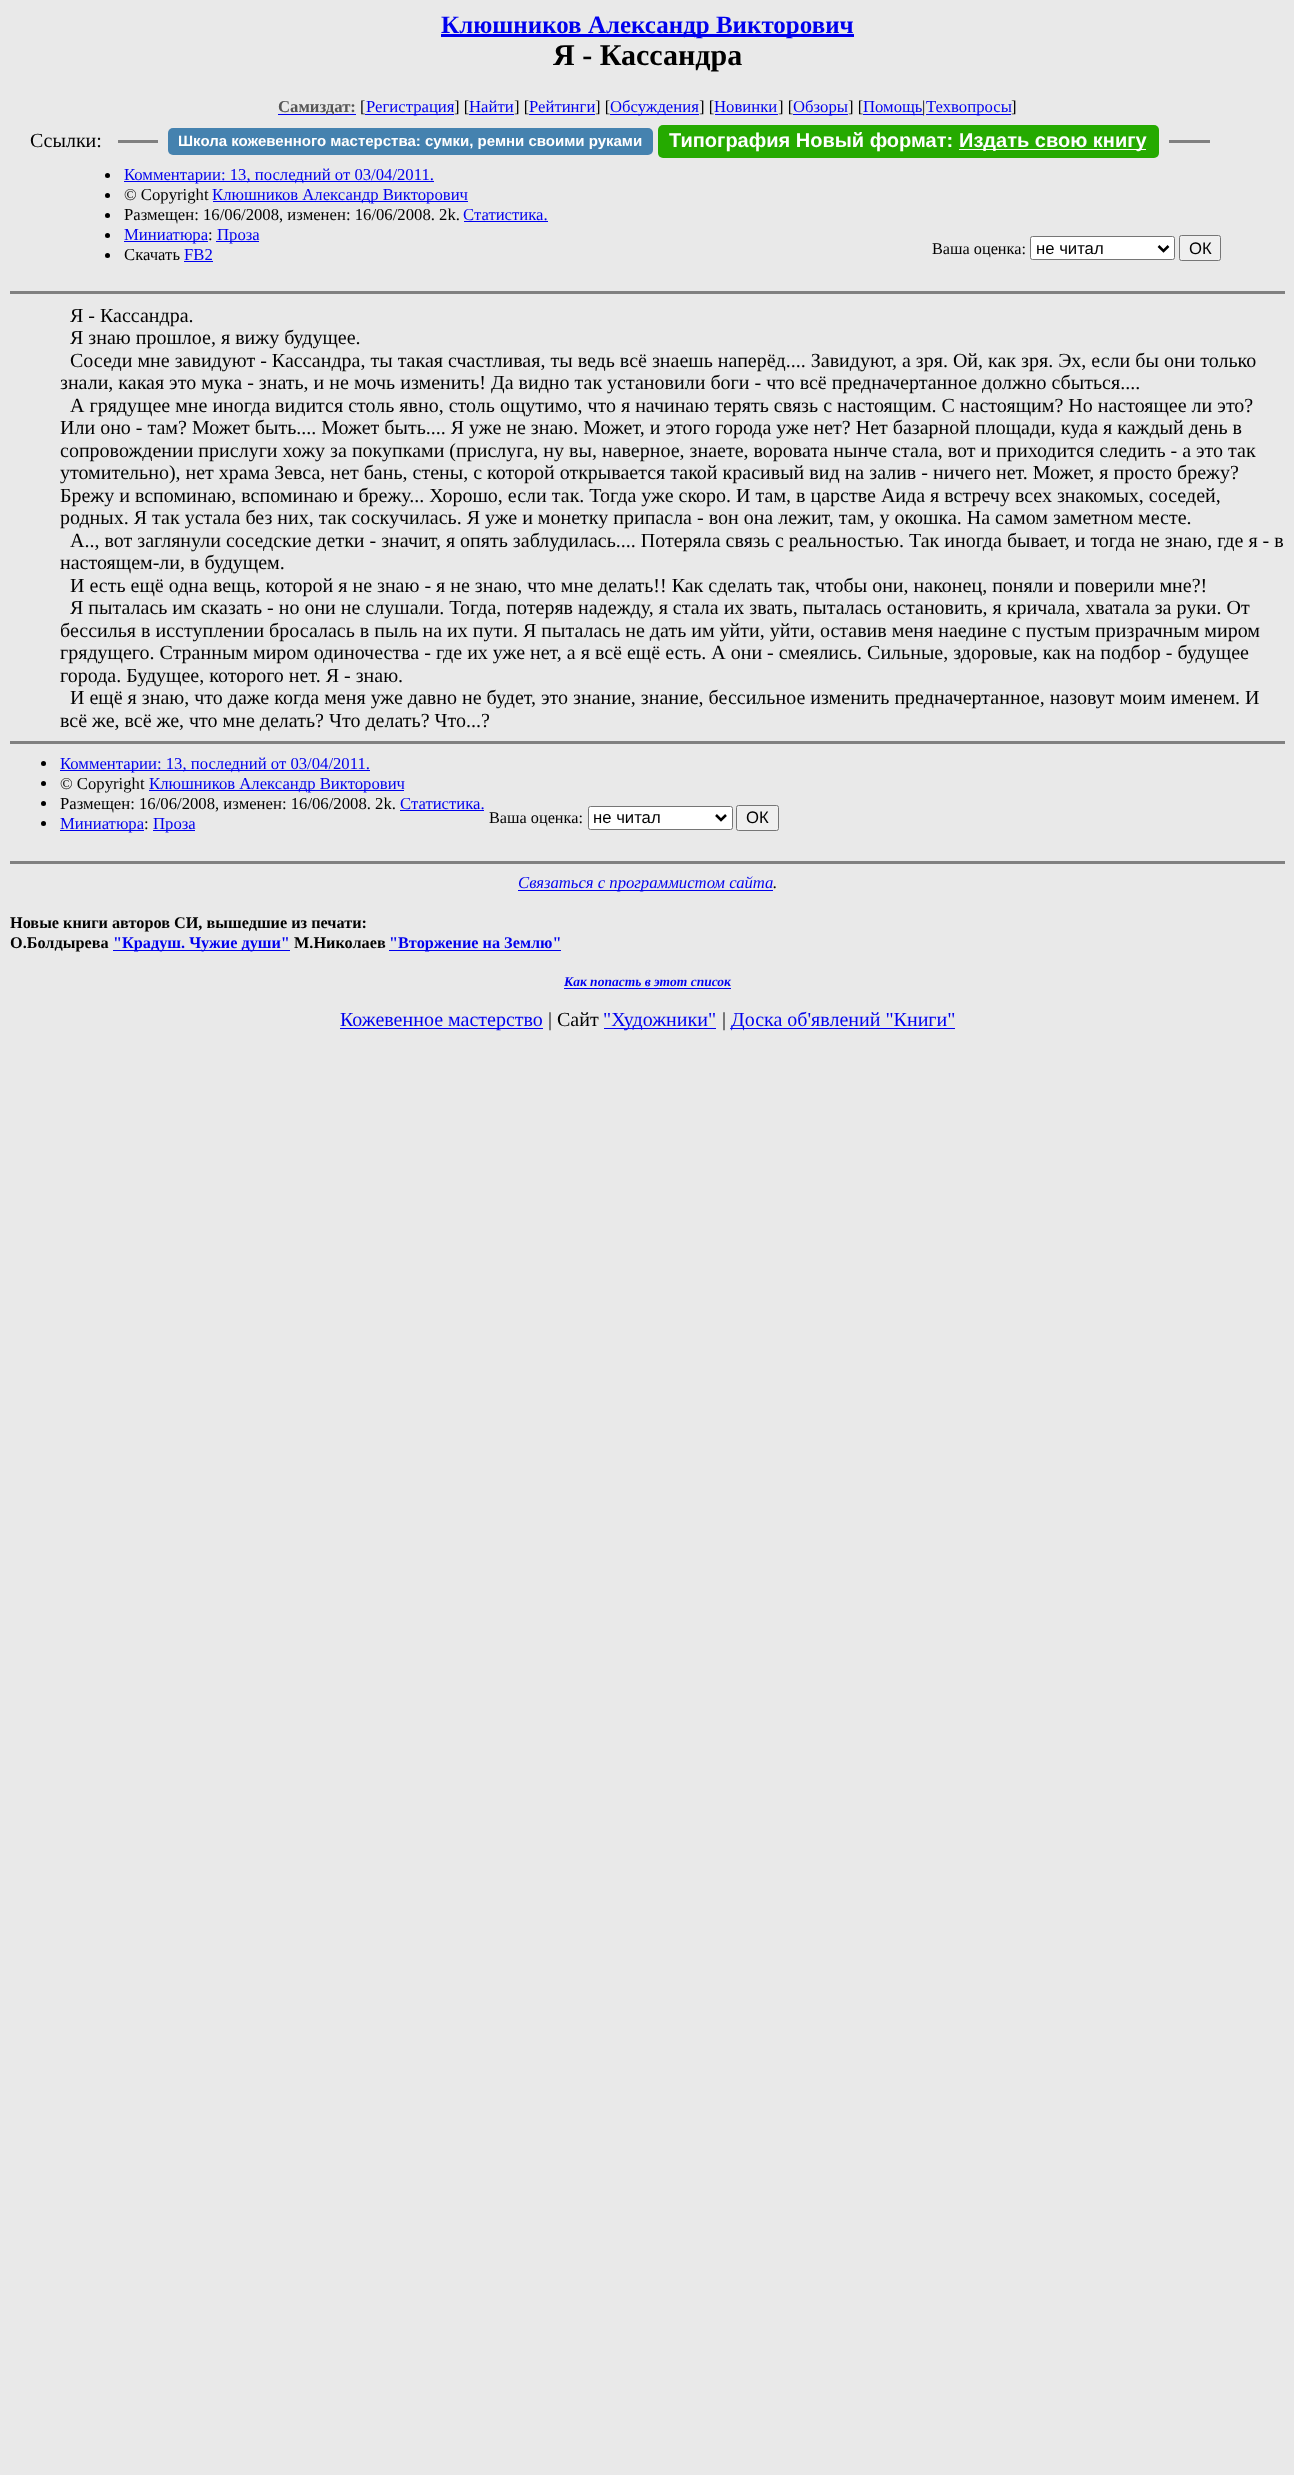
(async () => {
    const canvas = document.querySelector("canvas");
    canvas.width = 1294;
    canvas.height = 2475;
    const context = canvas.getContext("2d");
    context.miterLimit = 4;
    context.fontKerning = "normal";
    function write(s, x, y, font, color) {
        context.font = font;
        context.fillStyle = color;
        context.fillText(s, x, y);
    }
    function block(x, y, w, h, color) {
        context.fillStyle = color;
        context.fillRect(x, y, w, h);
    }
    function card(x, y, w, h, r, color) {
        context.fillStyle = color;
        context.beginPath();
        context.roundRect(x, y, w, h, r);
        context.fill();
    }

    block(0, 0, 1294, 2475, "rgb(233, 233, 233)");
    block(441, 34, 413, 3, "rgb(0, 0, 238)");
    write("Клюшников Александр Викторович", 441, 33, "bold 25px Liberation Serif", "rgb(0, 0, 238)");
    write("Я - Кассандра", 553, 65, "bold 30px Liberation Serif", "rgb(0, 0, 0)");
    block(278, 114, 78, 1, "rgb(0, 0, 238)");
    write("Самиздат:", 278, 112, "bold 16.7px Liberation Serif", "rgb(85, 85, 85)");
    write("[", 360, 112, "16.7px Liberation Serif", "rgb(0, 0, 0)");
    block(365, 114, 89, 1, "rgb(0, 0, 238)");
    write("Регистрация", 366, 112, "16.7px Liberation Serif", "rgb(0, 0, 238)");
    write("] [", 454, 112, "16.7px Liberation Serif", "rgb(0, 0, 0)");
    block(469, 114, 45, 1, "rgb(0, 0, 238)");
    write("Найти", 469, 112, "16.7px Liberation Serif", "rgb(0, 0, 238)");
    write("] [", 514, 112, "16.7px Liberation Serif", "rgb(0, 0, 0)");
    block(529, 114, 66, 1, "rgb(0, 0, 238)");
    write("Рейтинги", 529, 112, "16.7px Liberation Serif", "rgb(0, 0, 238)");
    write("] [", 595, 112, "16.7px Liberation Serif", "rgb(0, 0, 0)");
    block(610, 114, 89, 1, "rgb(0, 0, 238)");
    write("Обсуждения", 610, 112, "16.7px Liberation Serif", "rgb(0, 0, 238)");
    write("] [", 699, 112, "16.7px Liberation Serif", "rgb(0, 0, 0)");
    write("Новинки", 714, 112, "16.7px Liberation Serif", "rgb(0, 0, 238)");
    write("] [", 778, 112, "16.7px Liberation Serif", "rgb(0, 0, 0)");
    block(715, 114, 63, 1, "rgb(0, 0, 238)");
    block(793, 114, 55, 1, "rgb(0, 0, 238)");
    write("Обзоры", 793, 112, "16.7px Liberation Serif", "rgb(0, 0, 238)");
    write("] [", 848, 112, "16.7px Liberation Serif", "rgb(0, 0, 0)");
    block(863, 114, 60, 1, "rgb(0, 0, 238)");
    write("Помощь", 863, 112, "16.7px Liberation Serif", "rgb(0, 0, 238)");
    write("|", 922, 112, "16.7px Liberation Serif", "rgb(0, 0, 0)");
    block(926, 114, 85, 1, "rgb(0, 0, 238)");
    write("Техвопросы", 926, 112, "16.7px Liberation Serif", "rgb(0, 0, 238)");
    write("]", 1011, 112, "16.7px Liberation Serif", "rgb(0, 0, 0)");
    write("Ссылки:", 30, 147, "20px Liberation Serif", "rgb(0, 0, 0)");
    block(118, 140, 40, 3, "rgb(128, 128, 128)");
    card(168, 128, 485, 27, 5, "rgb(69, 130, 175)");
    write("Школа кожевенного мастерства: сумки, ремни своими руками", 178, 146, "bold 15px Liberation Sans", "rgb(255, 255, 255)");
    card(658, 125, 501, 33, 5, "rgb(37, 170, 0)");
    write("Типография Новый формат:", 669, 147, "bold 20px Liberation Sans", "rgb(255, 255, 255)");
    block(959, 149, 187, 1, "rgb(255, 255, 255)");
    write("Издать свою книгу", 959, 147, "bold 20px Liberation Sans", "rgb(255, 255, 255)");
    block(1169, 140, 41, 3, "rgb(128, 128, 128)");
    context.fillStyle = "rgb(0, 0, 0)";
    context.beginPath();
    context.arc(107.5, 175.5, 2.5, 0, Math.PI * 2);
    context.fill();
    block(124, 181, 310, 1, "rgb(0, 0, 238)");
    write("Комментарии: 13, последний от 03/04/2011.", 124, 180, "16.7px Liberation Serif", "rgb(0, 0, 238)");
    context.fillStyle = "rgb(0, 0, 0)";
    context.beginPath();
    context.arc(107.5, 195.5, 2.5, 0, Math.PI * 2);
    context.fill();
    write("© Copyright", 124, 200, "16.7px Liberation Serif", "rgb(0, 0, 0)");
    block(213, 201, 255, 1, "rgb(0, 0, 238)");
    write("Клюшников Александр Викторович", 212, 200, "16.7px Liberation Serif", "rgb(0, 0, 238)");
    context.fillStyle = "rgb(0, 0, 0)";
    context.beginPath();
    context.arc(107.5, 215.5, 2.5, 0, Math.PI * 2);
    context.fill();
    write("Размещен: 16/06/2008, изменен: 16/06/2008. 2k.", 124, 220, "16.7px Liberation Serif", "rgb(0, 0, 0)");
    write("Статистика.", 463, 220, "16.7px Liberation Serif", "rgb(0, 0, 238)");
    block(464, 221, 84, 1, "rgb(0, 0, 238)");
    context.fillStyle = "rgb(0, 0, 0)";
    context.beginPath();
    context.arc(107.5, 235.5, 2.5, 0, Math.PI * 2);
    context.fill();
    block(124, 241, 84, 1, "rgb(0, 0, 238)");
    write("Миниатюра", 124, 240, "16.7px Liberation Serif", "rgb(0, 0, 238)");
    write(":", 208, 240, "16.7px Liberation Serif", "rgb(0, 0, 0)");
    block(216, 241, 43, 1, "rgb(0, 0, 238)");
    write("Проза", 217, 240, "16.7px Liberation Serif", "rgb(0, 0, 238)");
    context.fillStyle = "rgb(0, 0, 0)";
    context.beginPath();
    context.arc(107.5, 255.5, 2.5, 0, Math.PI * 2);
    context.fill();
    write("Скачать", 124, 260, "16.7px Liberation Serif", "rgb(0, 0, 0)");
    write("FB2", 184, 260, "16.7px Liberation Serif", "rgb(0, 0, 238)");
    block(184, 261, 29, 1, "rgb(0, 0, 238)");
    write("Ваша оценка:", 932, 254, "16.25px Liberation Serif", "rgb(0, 0, 0)");
    context.fillStyle = "rgb(255, 255, 255)";
    context.beginPath();
    context.roundRect(1030.5, 236.5, 144, 23, 2);
    context.fill();
    context.strokeStyle = "rgb(118, 118, 118)";
    context.stroke();
    context.beginPath();
    context.moveTo(1158.5, 246);
    context.lineTo(1163.5, 251);
    context.lineTo(1168.5, 246);
    context.strokeStyle = "rgb(0, 0, 0)";
    context.lineWidth = 2.5;
    context.stroke();
    write("не читал", 1036, 254, "16.7px Liberation Sans", "rgb(0, 0, 0)");
    context.fillStyle = "rgb(239, 239, 239)";
    context.beginPath();
    context.roundRect(1179.5, 235.5, 41, 25, 2);
    context.fill();
    context.strokeStyle = "rgb(118, 118, 118)";
    context.lineWidth = 1;
    context.stroke();
    write("ОК", 1189, 254, "16.7px Liberation Sans", "rgb(0, 0, 0)");
    block(10, 291, 1275, 3, "rgb(128, 128, 128)");
    write("Я - Кассандра.", 70, 322, "20px Liberation Serif", "rgb(0, 0, 0)");
    write("Я знаю прошлое, я вижу будущее.", 70, 344, "20px Liberation Serif", "rgb(0, 0, 0)");
    write("Соседи мне завидуют - Кассандра, ты такая счастливая, ты ведь всё знаешь наперёд.... Завидуют, а зря. Ой, как зря. Эх, если бы они только", 70, 367, "20px Liberation Serif", "rgb(0, 0, 0)");
    write("знали, какая это мука - знать, и не мочь изменить! Да видно так установили боги - что всё предначертанное должно сбыться....", 60, 389, "20px Liberation Serif", "rgb(0, 0, 0)");
    write("А грядущее мне иногда видится столь явно, столь ощутимо, что я начинаю терять связь с настоящим. С настоящим? Но настоящее ли это?", 70, 412, "20px Liberation Serif", "rgb(0, 0, 0)");
    write("Или оно - там? Может быть.... Может быть.... Я уже не знаю. Может, и этого города уже нет? Нет базарной площади, куда я каждый день в", 60, 434, "20px Liberation Serif", "rgb(0, 0, 0)");
    write("сопровождении прислуги хожу за покупками (прислуга, ну вы, наверное, знаете, воровата нынче стала, вот и приходится следить - а это так", 60, 457, "20px Liberation Serif", "rgb(0, 0, 0)");
    write("утомительно), нет храма Зевса, нет бань, стены, с которой открывается такой красивый вид на залив - ничего нет. Может, я просто брежу?", 60, 479, "20px Liberation Serif", "rgb(0, 0, 0)");
    write("Брежу и вспоминаю, вспоминаю и брежу... Хорошо, если так. Тогда уже скоро. И там, в царстве Аида я встречу всех знакомых, соседей,", 60, 502, "20px Liberation Serif", "rgb(0, 0, 0)");
    write("родных. Я так устала без них, так соскучилась. Я уже и монетку припасла - вон она лежит, там, у окошка. На самом заметном месте.", 60, 524, "20px Liberation Serif", "rgb(0, 0, 0)");
    write("А.., вот заглянули соседские детки - значит, я опять заблудилась.... Потеряла связь с реальностью. Так иногда бывает, и тогда не знаю, где я - в", 70, 547, "20px Liberation Serif", "rgb(0, 0, 0)");
    write("настоящем-ли, в будущем.", 60, 569, "20px Liberation Serif", "rgb(0, 0, 0)");
    write("И есть ещё одна вещь, которой я не знаю - я не знаю, что мне делать!! Как сделать так, чтобы они, наконец, поняли и поверили мне?!", 70, 592, "20px Liberation Serif", "rgb(0, 0, 0)");
    write("Я пыталась им сказать - но они не слушали. Тогда, потеряв надежду, я стала их звать, пыталась остановить, я кричала, хватала за руки. От", 70, 614, "20px Liberation Serif", "rgb(0, 0, 0)");
    write("бессилья в исступлении бросалась в пыль на их пути. Я пыталась не дать им уйти, уйти, оставив меня наедине с пустым призрачным миром", 60, 637, "20px Liberation Serif", "rgb(0, 0, 0)");
    write("грядущего. Странным миром одиночества - где их уже нет, а я всё ещё есть. А они - смеялись. Сильные, здоровые, как на подбор - будущее", 60, 659, "20px Liberation Serif", "rgb(0, 0, 0)");
    write("города. Будущее, которого нет. Я - знаю.", 60, 682, "20px Liberation Serif", "rgb(0, 0, 0)");
    write("И ещё я знаю, что даже когда меня уже давно не будет, это знание, знание, бессильное изменить предначертанное, назовут моим именем. И", 70, 704, "20px Liberation Serif", "rgb(0, 0, 0)");
    write("всё же, всё же, что мне делать? Что делать? Что...?", 60, 727, "20px Liberation Serif", "rgb(0, 0, 0)");
    block(10, 741, 1275, 3, "rgb(128, 128, 128)");
    context.fillStyle = "rgb(0, 0, 0)";
    context.beginPath();
    context.arc(43.5, 763.5, 2.5, 0, Math.PI * 2);
    context.fill();
    block(60, 770, 310, 1, "rgb(0, 0, 238)");
    write("Комментарии: 13, последний от 03/04/2011.", 60, 769, "16.7px Liberation Serif", "rgb(0, 0, 238)");
    context.fillStyle = "rgb(0, 0, 0)";
    context.beginPath();
    context.arc(43.5, 783.5, 2.5, 0, Math.PI * 2);
    context.fill();
    write("© Copyright", 60, 789, "16.7px Liberation Serif", "rgb(0, 0, 0)");
    block(149, 790, 255, 1, "rgb(0, 0, 238)");
    write("Клюшников Александр Викторович", 149, 789, "16.7px Liberation Serif", "rgb(0, 0, 238)");
    context.fillStyle = "rgb(0, 0, 0)";
    context.beginPath();
    context.arc(43.5, 803.5, 2.5, 0, Math.PI * 2);
    context.fill();
    write("Размещен: 16/06/2008, изменен: 16/06/2008. 2k.", 60, 809, "16.7px Liberation Serif", "rgb(0, 0, 0)");
    write("Статистика.", 400, 809, "16.7px Liberation Serif", "rgb(0, 0, 238)");
    block(400, 810, 84, 1, "rgb(0, 0, 238)");
    context.fillStyle = "rgb(0, 0, 0)";
    context.beginPath();
    context.arc(43.5, 823.5, 2.5, 0, Math.PI * 2);
    context.fill();
    block(60, 830, 84, 1, "rgb(0, 0, 238)");
    write("Миниатюра", 60, 829, "16.7px Liberation Serif", "rgb(0, 0, 238)");
    write(":", 144, 829, "16.7px Liberation Serif", "rgb(0, 0, 0)");
    block(153, 830, 42, 1, "rgb(0, 0, 238)");
    write("Проза", 153, 829, "16.7px Liberation Serif", "rgb(0, 0, 238)");
    write("Ваша оценка:", 489, 823, "16.25px Liberation Serif", "rgb(0, 0, 0)");
    context.fillStyle = "rgb(255, 255, 255)";
    context.beginPath();
    context.roundRect(588.5, 806.5, 144, 23, 2);
    context.fill();
    context.stroke();
    context.beginPath();
    context.moveTo(716, 815);
    context.lineTo(721, 820);
    context.lineTo(726, 815);
    context.strokeStyle = "rgb(0, 0, 0)";
    context.lineWidth = 2.5;
    context.stroke();
    write("не читал", 593, 823, "16.7px Liberation Sans", "rgb(0, 0, 0)");
    context.fillStyle = "rgb(239, 239, 239)";
    context.beginPath();
    context.roundRect(736.5, 805.5, 42, 25, 2);
    context.fill();
    context.strokeStyle = "rgb(118, 118, 118)";
    context.lineWidth = 1;
    context.stroke();
    write("ОК", 746, 823, "16.7px Liberation Sans", "rgb(0, 0, 0)");
    block(10, 861, 1275, 3, "rgb(128, 128, 128)");
    block(518, 890, 255, 1, "rgb(0, 0, 238)");
    write("Связаться с программистом сайта", 518, 888, "italic 16.7px Liberation Serif", "rgb(0, 0, 238)");
    write(".", 773, 888, "italic 16.7px Liberation Serif", "rgb(0, 0, 0)");
    write("Новые книги авторов СИ, вышедшие из печати:", 10, 928, "bold 16.25px Liberation Serif", "rgb(0, 0, 0)");
    write("О.Болдырева", 10, 948, "bold 16.25px Liberation Serif", "rgb(0, 0, 0)");
    block(113, 950, 177, 1, "rgb(0, 0, 238)");
    write("\"Крадуш. Чужие души\"", 113, 948, "bold 16.25px Liberation Serif", "rgb(0, 0, 238)");
    write("М.Николаев", 294, 948, "bold 16.25px Liberation Serif", "rgb(0, 0, 0)");
    block(389, 950, 172, 1, "rgb(0, 0, 238)");
    write("\"Вторжение на Землю\"", 389, 948, "bold 16.25px Liberation Serif", "rgb(0, 0, 238)");
    write("Как попасть в этoт список", 564, 986, "italic bold 13.5px Liberation Serif", "rgb(0, 0, 238)");
    block(564, 988, 167, 1, "rgb(0, 0, 238)");
    block(340, 1028, 203, 1, "rgb(0, 0, 238)");
    write("Кожевенное мастерство", 340, 1026, "20px Liberation Serif", "rgb(0, 0, 238)");
    write("| Сайт", 548, 1026, "20px Liberation Serif", "rgb(0, 0, 0)");
    block(604, 1028, 112, 1, "rgb(0, 0, 238)");
    write("\"Художники\"", 603, 1026, "20px Liberation Serif", "rgb(0, 0, 238)");
    write("|", 722, 1026, "20px Liberation Serif", "rgb(0, 0, 0)");
    block(730, 1028, 225, 1, "rgb(0, 0, 238)");
    write("Доска об'явлений \"Книги\"", 731, 1026, "20px Liberation Serif", "rgb(0, 0, 238)");
})();
